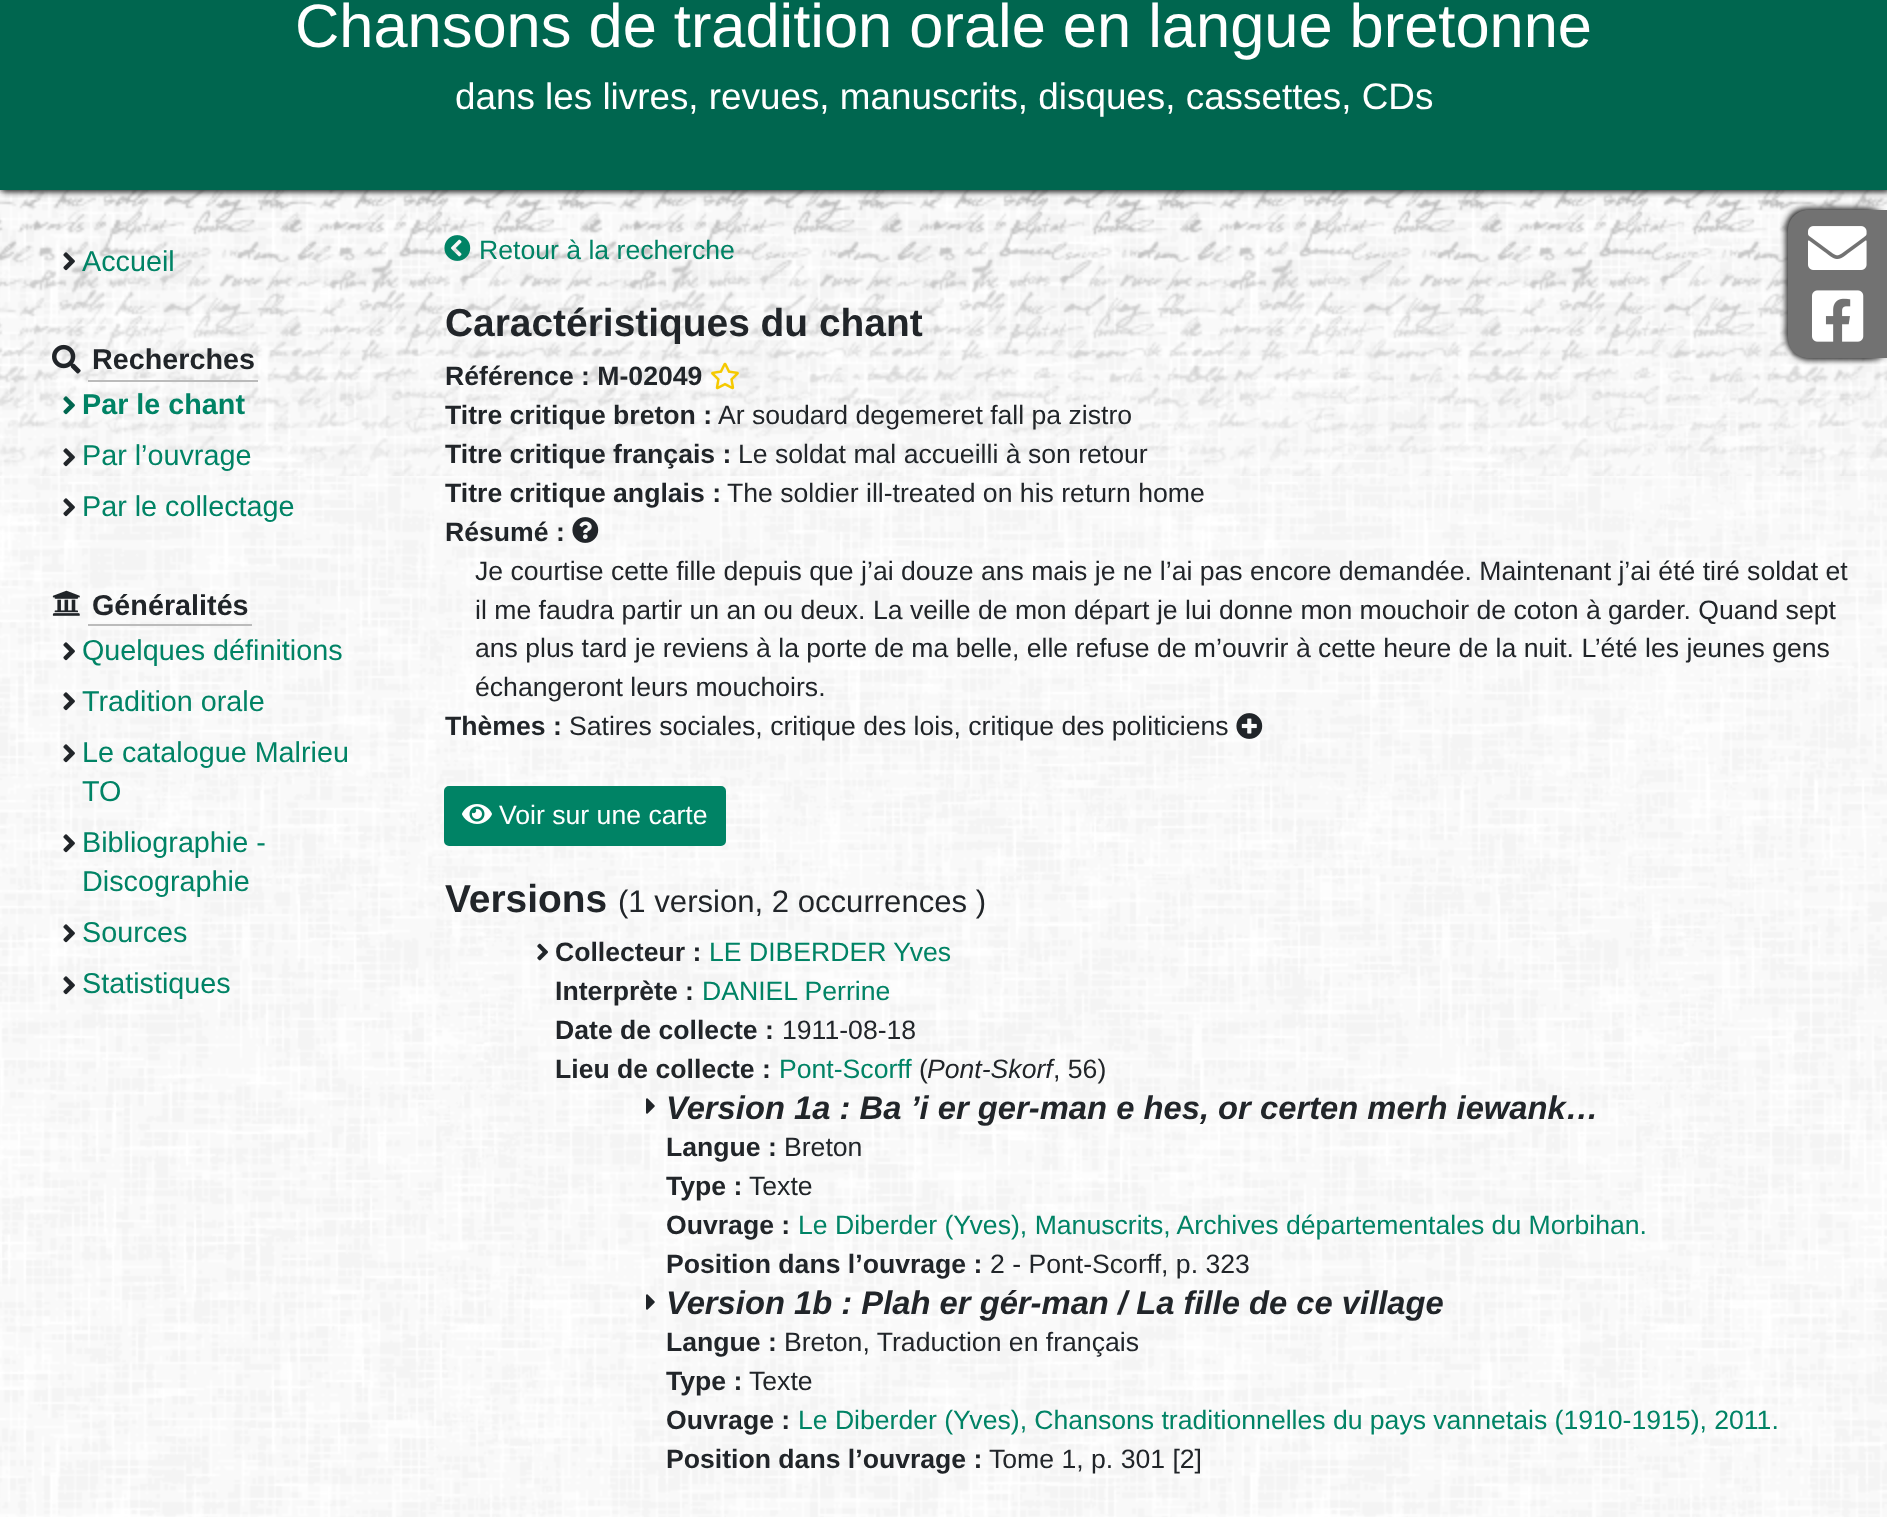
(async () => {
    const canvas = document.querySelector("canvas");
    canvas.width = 1887;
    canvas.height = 1517;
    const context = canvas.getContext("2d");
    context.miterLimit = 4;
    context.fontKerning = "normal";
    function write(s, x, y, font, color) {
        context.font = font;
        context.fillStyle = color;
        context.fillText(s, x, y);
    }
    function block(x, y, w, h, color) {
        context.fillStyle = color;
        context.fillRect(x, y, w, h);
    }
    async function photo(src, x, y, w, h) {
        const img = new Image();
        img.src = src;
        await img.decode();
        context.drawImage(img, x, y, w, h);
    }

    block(0, 0, 1887, 1517, "rgb(255, 255, 255)");
    await photo("media/1.png", 0, 190, 1887, 1327);
    await photo("media/2.png", 0, 190, 1887, 286);
    block(0, 0, 1887, 190, "rgb(0, 102, 79)");
    context.save();
    context.beginPath();
    context.rect(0, 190, 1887, 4);
    context.clip();
    context.fillStyle = "rgb(51, 51, 51)";
    context.filter = "blur(3px)";
    context.beginPath();
    context.rect(-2, -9, 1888, 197);
    context.fill();
    context.filter = "none";
    context.restore();
    context.save();
    context.beginPath();
    context.rect(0, 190, 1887, 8);
    context.clip();
    context.fillStyle = "rgb(51, 51, 51)";
    context.filter = "blur(3px)";
    context.beginPath();
    context.rect(2, -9, 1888, 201);
    context.fill();
    context.filter = "none";
    context.restore();
    write("Chansons de tradition orale en langue bretonne", 295, 47, "61.4px Liberation Sans", "rgb(255, 255, 255)");
    write("dans les livres, revues, manuscrits, disques, cassettes, CDs", 455, 109, "36.85px Liberation Sans", "rgb(255, 255, 255)");
    await photo("media/3.png", 63, 252, 12, 19);
    write("Accueil", 82, 271, "28.75px Liberation Sans", "rgb(0, 131, 101)");
    await photo("media/4.png", 52, 344, 29, 30);
    write("Recherches", 92, 369, "bold 28.75px Liberation Sans", "rgb(33, 37, 41)");
    block(88, 380, 170, 2, "rgb(187, 187, 187)");
    await photo("media/5.png", 63, 396, 12, 19);
    write("Par le chant", 82, 414, "bold 28.75px Liberation Sans", "rgb(0, 131, 101)");
    await photo("media/6.png", 63, 448, 12, 19);
    write("Par l’ouvrage", 82, 465, "28.75px Liberation Sans", "rgb(0, 131, 101)");
    await photo("media/7.png", 63, 498, 12, 19);
    write("Par le collectage", 82, 516, "28.75px Liberation Sans", "rgb(0, 131, 101)");
    await photo("media/8.png", 52, 590, 28, 26);
    write("Généralités", 92, 615, "bold 28.75px Liberation Sans", "rgb(33, 37, 41)");
    block(88, 624, 164, 2, "rgb(187, 187, 187)");
    await photo("media/9.png", 63, 642, 12, 19);
    write("Quelques définitions", 82, 660, "28.75px Liberation Sans", "rgb(0, 131, 101)");
    await photo("media/10.png", 63, 692, 12, 19);
    write("Tradition orale", 82, 711, "28.75px Liberation Sans", "rgb(0, 131, 101)");
    await photo("media/11.png", 63, 744, 12, 19);
    write("Le catalogue Malrieu", 82, 762, "28.75px Liberation Sans", "rgb(0, 131, 101)");
    write("TO", 82, 801, "28.75px Liberation Sans", "rgb(0, 131, 101)");
    await photo("media/12.png", 63, 834, 12, 19);
    write("Bibliographie -", 82, 852, "28.75px Liberation Sans", "rgb(0, 131, 101)");
    write("Discographie", 82, 891, "28.75px Liberation Sans", "rgb(0, 131, 101)");
    await photo("media/13.png", 63, 924, 12, 19);
    write("Sources", 82, 942, "28.75px Liberation Sans", "rgb(0, 131, 101)");
    await photo("media/14.png", 63, 976, 12, 19);
    write("Statistiques", 82, 993, "28.75px Liberation Sans", "rgb(0, 131, 101)");
    await photo("media/15.png", 444, 235, 27, 26);
    write("Retour à la recherche", 479, 259, "26.62px Liberation Sans", "rgb(0, 131, 101)");
    write("Caractéristiques du chant", 445, 336, "bold 38.9px Liberation Sans", "rgb(33, 37, 41)");
    write("Référence : M-02049", 445, 385, "bold 26.62px Liberation Sans", "rgb(33, 37, 41)");
    await photo("media/16.png", 711, 362, 28, 28);
    write("Titre critique breton :", 445, 424, "bold 26.62px Liberation Sans", "rgb(33, 37, 41)");
    write("Ar soudard degemeret fall pa zistro", 718, 424, "26.62px Liberation Sans", "rgb(33, 37, 41)");
    write("Titre critique français :", 445, 463, "bold 26.62px Liberation Sans", "rgb(33, 37, 41)");
    write("Le soldat mal accueilli à son retour", 738, 463, "26.62px Liberation Sans", "rgb(33, 37, 41)");
    write("Titre critique anglais :", 445, 502, "bold 26.62px Liberation Sans", "rgb(33, 37, 41)");
    write("The soldier ill-treated on his return home", 727, 502, "26.62px Liberation Sans", "rgb(33, 37, 41)");
    write("Résumé :", 445, 541, "bold 26.62px Liberation Sans", "rgb(33, 37, 41)");
    await photo("media/17.png", 572, 517, 27, 26);
    write("Je courtise cette fille depuis que j’ai douze ans mais je ne l’ai pas encore demandée. Maintenant j’ai été tiré soldat et", 475, 580, "26.62px Liberation Sans", "rgb(33, 37, 41)");
    write("il me faudra partir un an ou deux. La veille de mon départ je lui donne mon mouchoir de coton à garder. Quand sept", 475, 619, "26.62px Liberation Sans", "rgb(33, 37, 41)");
    write("ans plus tard je reviens à la porte de ma belle, elle refuse de m’ouvrir à cette heure de la nuit. L’été les jeunes gens", 475, 657, "26.62px Liberation Sans", "rgb(33, 37, 41)");
    write("échangeront leurs mouchoirs.", 475, 696, "26.62px Liberation Sans", "rgb(33, 37, 41)");
    write("Thèmes :", 445, 735, "bold 26.62px Liberation Sans", "rgb(33, 37, 41)");
    write("Satires sociales, critique des lois, critique des politiciens", 569, 735, "26.62px Liberation Sans", "rgb(33, 37, 41)");
    await photo("media/18.png", 1236, 713, 27, 26);
    context.fillStyle = "rgb(0, 131, 101)";
    context.beginPath();
    context.roundRect(445, 787, 280, 58, 4);
    context.fill();
    context.strokeStyle = "rgb(0, 131, 101)";
    context.lineWidth = 2;
    context.stroke();
    await photo("media/19.png", 462, 804, 30, 20);
    write("Voir sur une carte", 499, 824, "26.62px Liberation Sans", "rgb(255, 255, 255)");
    write("Versions", 445, 912, "bold 38.9px Liberation Sans", "rgb(33, 37, 41)");
    write("(1 version, 2 occurrences )", 618, 912, "31.1px Liberation Sans", "rgb(33, 37, 41)");
    await photo("media/20.png", 537, 943, 11, 18);
    write("Collecteur :", 555, 961, "bold 26.62px Liberation Sans", "rgb(33, 37, 41)");
    write("LE DIBERDER Yves", 709, 961, "26.62px Liberation Sans", "rgb(0, 131, 101)");
    write("Interprète :", 555, 1000, "bold 26.62px Liberation Sans", "rgb(33, 37, 41)");
    write("DANIEL Perrine", 702, 1000, "26.62px Liberation Sans", "rgb(0, 131, 101)");
    write("Date de collecte :", 555, 1039, "bold 26.62px Liberation Sans", "rgb(33, 37, 41)");
    write("1911-08-18", 782, 1039, "26.62px Liberation Sans", "rgb(33, 37, 41)");
    write("Lieu de collecte :", 555, 1078, "bold 26.62px Liberation Sans", "rgb(33, 37, 41)");
    write("Pont-Scorff", 779, 1078, "26.62px Liberation Sans", "rgb(0, 131, 101)");
    write("(", 919, 1078, "26.62px Liberation Sans", "rgb(33, 37, 41)");
    write("Pont-Skorf", 927, 1078, "italic 26.62px Liberation Sans", "rgb(33, 37, 41)");
    write(", 56)", 1053, 1078, "26.62px Liberation Sans", "rgb(33, 37, 41)");
    await photo("media/21.png", 646, 1098, 9, 16);
    write("Version 1a : Ba ’i er ger-man e hes, or certen merh iewank…", 666, 1119, "italic bold 32.75px Liberation Sans", "rgb(33, 37, 41)");
    write("Langue :", 666, 1156, "bold 26.62px Liberation Sans", "rgb(33, 37, 41)");
    write("Breton", 784, 1156, "26.62px Liberation Sans", "rgb(33, 37, 41)");
    write("Type :", 666, 1195, "bold 26.62px Liberation Sans", "rgb(33, 37, 41)");
    write("Texte", 749, 1195, "26.62px Liberation Sans", "rgb(33, 37, 41)");
    write("Ouvrage :", 666, 1234, "bold 26.62px Liberation Sans", "rgb(33, 37, 41)");
    write("Le Diberder (Yves), Manuscrits, Archives départementales du Morbihan.", 798, 1234, "26.62px Liberation Sans", "rgb(0, 131, 101)");
    write("Position dans l’ouvrage :", 666, 1273, "bold 26.62px Liberation Sans", "rgb(33, 37, 41)");
    write("2 - Pont-Scorff, p. 323", 990, 1273, "26.62px Liberation Sans", "rgb(33, 37, 41)");
    await photo("media/22.png", 646, 1294, 9, 16);
    write("Version 1b : Plah er gér-man / La fille de ce village", 666, 1314, "italic bold 32.75px Liberation Sans", "rgb(33, 37, 41)");
    write("Langue :", 666, 1351, "bold 26.62px Liberation Sans", "rgb(33, 37, 41)");
    write("Breton, Traduction en français", 784, 1351, "26.62px Liberation Sans", "rgb(33, 37, 41)");
    write("Type :", 666, 1390, "bold 26.62px Liberation Sans", "rgb(33, 37, 41)");
    write("Texte", 749, 1390, "26.62px Liberation Sans", "rgb(33, 37, 41)");
    write("Ouvrage :", 666, 1429, "bold 26.62px Liberation Sans", "rgb(33, 37, 41)");
    context.wordSpacing = "-0.1px";
    write("Le Diberder (Yves), Chansons traditionnelles du pays vannetais (1910-1915), 2011.", 798, 1429, "26.62px Liberation Sans", "rgb(0, 131, 101)");
    context.wordSpacing = "0px";
    write("Position dans l’ouvrage :", 666, 1468, "bold 26.62px Liberation Sans", "rgb(33, 37, 41)");
    write("Tome 1, p. 301 [2]", 989, 1468, "26.62px Liberation Sans", "rgb(33, 37, 41)");
    context.fillStyle = "rgb(51, 51, 51)";
    context.filter = "blur(3px)";
    context.beginPath();
    context.roundRect(1786, 208, 100, 148, 20);
    context.fill();
    context.filter = "none";
    context.filter = "blur(3px)";
    context.beginPath();
    context.roundRect(1790, 212, 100, 148, 20);
    context.fill();
    context.filter = "none";
    context.fillStyle = "rgb(114, 114, 114)";
    context.beginPath();
    context.moveTo(1808, 210);
    context.lineTo(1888, 210);
    context.lineTo(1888, 358);
    context.lineTo(1808, 358);
    context.bezierCurveTo(1797, 358, 1788, 349, 1788, 338);
    context.lineTo(1788, 230);
    context.bezierCurveTo(1788, 219, 1797, 210, 1808, 210);
    context.closePath();
    context.fill();
    await photo("media/23.png", 1808, 226, 59, 44);
    await photo("media/24.png", 1812, 290, 52, 52);
})();
